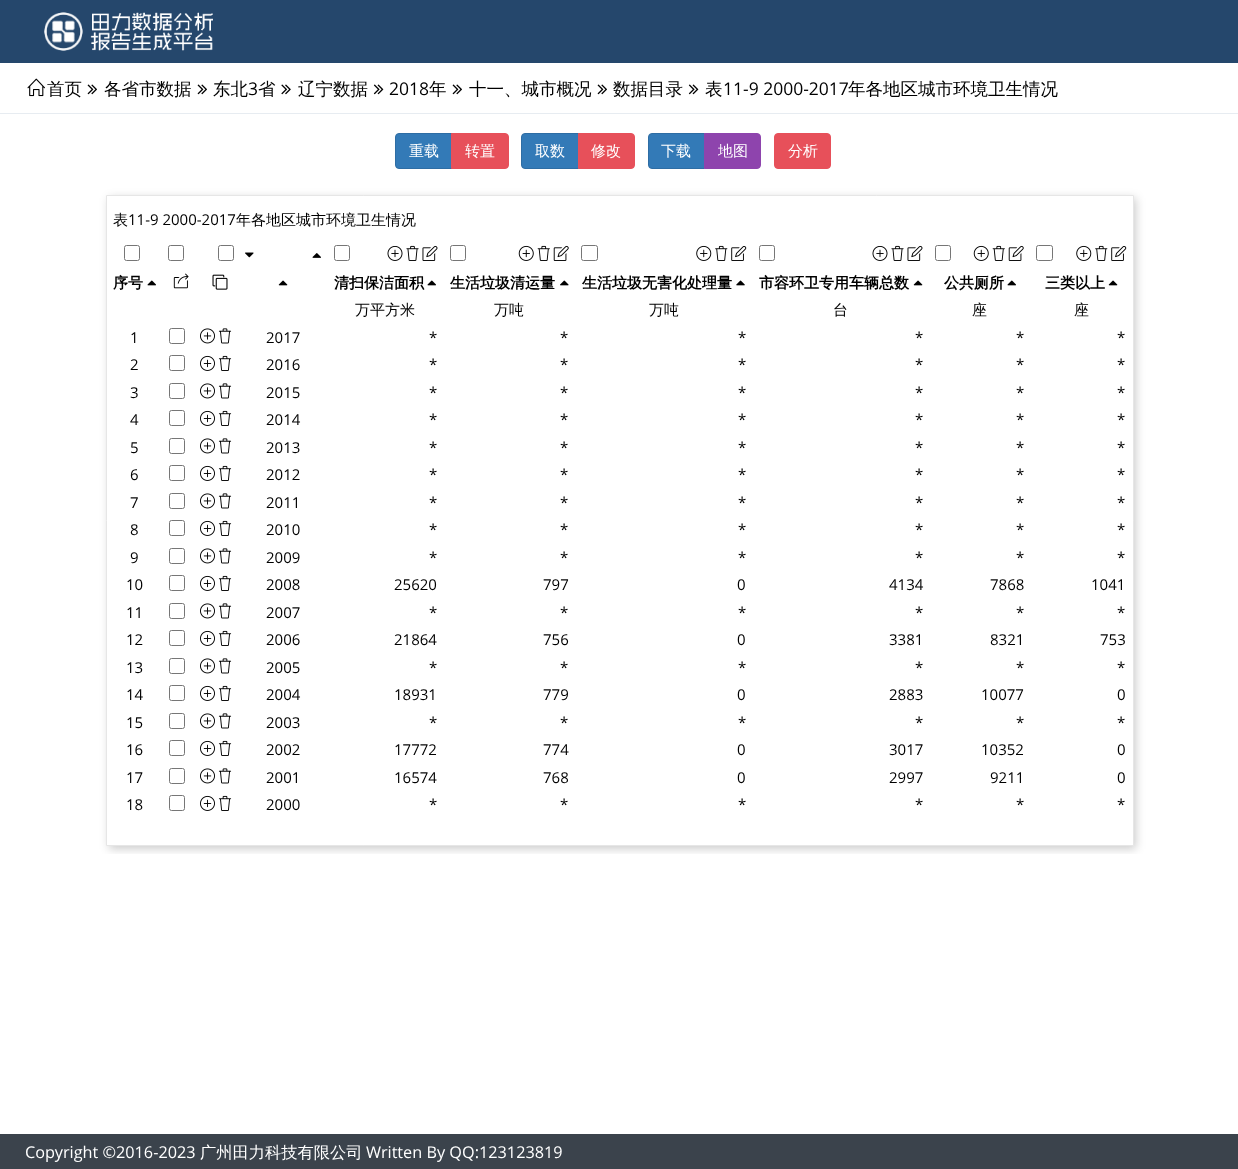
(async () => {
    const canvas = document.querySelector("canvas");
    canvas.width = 1238;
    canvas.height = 1169;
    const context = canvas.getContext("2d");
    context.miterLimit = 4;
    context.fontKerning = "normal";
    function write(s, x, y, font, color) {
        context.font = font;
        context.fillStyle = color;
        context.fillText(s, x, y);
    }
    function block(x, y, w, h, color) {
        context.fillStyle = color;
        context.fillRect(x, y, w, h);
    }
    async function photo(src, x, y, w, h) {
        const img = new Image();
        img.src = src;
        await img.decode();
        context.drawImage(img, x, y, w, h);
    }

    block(0, 0, 1238, 1169, "rgb(59, 67, 76)");
    block(0, 0, 1238, 63, "rgb(37, 71, 108)");
    await photo("media/1.png", 44, 12, 169, 39);
    block(0, 63, 1238, 1071, "rgb(255, 255, 255)");
    block(0, 113, 1238, 1, "rgb(231, 236, 241)");
    await photo("media/2.png", 27, 78, 18, 19);
    write("首页", 47, 95, "500 17.5px WenQuanYi Zen Hei", "rgb(0, 0, 0)");
    await photo("media/3.png", 87, 84, 10, 11);
    write("各省市数据", 104, 95, "500 17.5px WenQuanYi Zen Hei", "rgb(0, 0, 0)");
    await photo("media/3.png", 197, 84, 10, 11);
    write("东北", 213, 95, "500 17.5px WenQuanYi Zen Hei", "rgb(0, 0, 0)");
    write("3", 248, 95, "17.5px Open Sans", "rgb(0, 0, 0)");
    write("省", 258, 95, "500 17.5px WenQuanYi Zen Hei", "rgb(0, 0, 0)");
    await photo("media/4.png", 281, 84, 10, 11);
    write("辽宁数据", 298, 95, "500 17.5px WenQuanYi Zen Hei", "rgb(0, 0, 0)");
    await photo("media/5.png", 373, 84, 11, 11);
    write("2018", 389, 95, "17.5px Open Sans", "rgb(0, 0, 0)");
    write("年", 429, 95, "500 17.5px WenQuanYi Zen Hei", "rgb(0, 0, 0)");
    await photo("media/3.png", 452, 84, 10, 11);
    write("十一、城市概况", 469, 95, "500 17.5px WenQuanYi Zen Hei", "rgb(0, 0, 0)");
    await photo("media/3.png", 597, 84, 10, 11);
    write("数据目录", 613, 95, "500 17.5px WenQuanYi Zen Hei", "rgb(0, 0, 0)");
    await photo("media/5.png", 688, 84, 11, 11);
    write("表", 705, 95, "500 17.5px WenQuanYi Zen Hei", "rgb(0, 0, 0)");
    write("11-9 2000-2017", 723, 95, "17.5px Open Sans", "rgb(0, 0, 0)");
    write("年各地区城市环境卫生情况", 848, 95, "500 17.5px WenQuanYi Zen Hei", "rgb(0, 0, 0)");
    context.fillStyle = "rgb(51, 122, 183)";
    context.beginPath();
    context.roundRect(395.5, 133.5, 57, 35, [3.5, 0, 0, 3.5]);
    context.fill();
    context.strokeStyle = "rgb(46, 109, 164)";
    context.stroke();
    write("重载", 409, 156, "500 15px WenQuanYi Zen Hei", "rgb(255, 255, 255)");
    context.fillStyle = "rgb(231, 80, 90)";
    context.beginPath();
    context.roundRect(451.5, 133.5, 57, 35, [0, 3.5, 3.5, 0]);
    context.fill();
    context.strokeStyle = "rgb(231, 80, 90)";
    context.stroke();
    write("转置", 465, 156, "500 15px WenQuanYi Zen Hei", "rgb(255, 255, 255)");
    context.fillStyle = "rgb(51, 122, 183)";
    context.beginPath();
    context.roundRect(521.5, 133.5, 57, 35, [3.5, 0, 0, 3.5]);
    context.fill();
    context.strokeStyle = "rgb(46, 109, 164)";
    context.stroke();
    write("取数", 535, 156, "500 15px WenQuanYi Zen Hei", "rgb(255, 255, 255)");
    context.fillStyle = "rgb(231, 80, 90)";
    context.beginPath();
    context.roundRect(578.5, 133.5, 56, 35, [0, 3.5, 3.5, 0]);
    context.fill();
    context.strokeStyle = "rgb(231, 80, 90)";
    context.stroke();
    write("修改", 591, 156, "500 15px WenQuanYi Zen Hei", "rgb(255, 255, 255)");
    context.fillStyle = "rgb(51, 122, 183)";
    context.beginPath();
    context.roundRect(648.5, 133.5, 56, 35, [3.5, 0, 0, 3.5]);
    context.fill();
    context.strokeStyle = "rgb(46, 109, 164)";
    context.stroke();
    write("下载", 661, 156, "500 15px WenQuanYi Zen Hei", "rgb(255, 255, 255)");
    context.fillStyle = "rgb(142, 68, 173)";
    context.beginPath();
    context.roundRect(704.5, 133.5, 56, 35, [0, 3.5, 3.5, 0]);
    context.fill();
    context.strokeStyle = "rgb(142, 68, 173)";
    context.stroke();
    write("地图", 718, 156, "500 15px WenQuanYi Zen Hei", "rgb(255, 255, 255)");
    context.fillStyle = "rgb(231, 80, 90)";
    context.beginPath();
    context.roundRect(774.5, 133.5, 56, 35, 3.5);
    context.fill();
    context.strokeStyle = "rgb(231, 80, 90)";
    context.stroke();
    write("分析", 788, 156, "500 15px WenQuanYi Zen Hei", "rgb(255, 255, 255)");
    context.save();
    context.beginPath();
    context.rect(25, 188, 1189, 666);
    context.clip();
    context.fillStyle = "rgba(0, 0, 0, 0.2)";
    context.filter = "blur(5px)";
    context.beginPath();
    context.rect(109, 198, 1027, 651);
    context.fill();
    context.filter = "none";
    context.restore();
    context.beginPath();
    context.rect(106.5, 195.5, 1027, 650);
    context.fill();
    context.strokeStyle = "rgb(230, 230, 230)";
    context.stroke();
    write("表", 113, 225, "500 15px WenQuanYi Zen Hei", "rgb(0, 0, 0)");
    write("11-9 2000-2017", 128, 225, "15px Open Sans", "rgb(0, 0, 0)");
    write("年各地区城市环境卫生情况", 236, 225, "500 15px WenQuanYi Zen Hei", "rgb(0, 0, 0)");
    context.beginPath();
    context.roundRect(124.5, 245.5, 15, 15, 2);
    context.strokeStyle = "rgb(118, 118, 118)";
    context.stroke();
    context.beginPath();
    context.roundRect(168.5, 245.5, 15, 15, 2);
    context.stroke();
    context.beginPath();
    context.roundRect(218.5, 245.5, 15, 15, 2);
    context.stroke();
    await photo("media/6.png", 245, 252, 9, 6);
    await photo("media/7.png", 312, 253, 9, 5);
    context.beginPath();
    context.roundRect(334.5, 245.5, 15, 15, 2);
    context.stroke();
    await photo("media/8.png", 387, 246, 16, 15);
    await photo("media/9.png", 406, 245, 13, 16);
    await photo("media/10.png", 422, 245, 16, 16);
    context.beginPath();
    context.roundRect(450.5, 245.5, 15, 15, 2);
    context.stroke();
    await photo("media/11.png", 518, 245, 16, 16);
    await photo("media/12.png", 537, 245, 13, 16);
    await photo("media/13.png", 553, 245, 16, 16);
    context.beginPath();
    context.roundRect(581.5, 245.5, 16, 15, 2);
    context.stroke();
    await photo("media/14.png", 696, 245, 16, 16);
    await photo("media/15.png", 715, 245, 13, 16);
    await photo("media/16.png", 731, 246, 16, 15);
    context.beginPath();
    context.roundRect(759.5, 245.5, 15, 15, 2);
    context.stroke();
    await photo("media/8.png", 872, 246, 16, 15);
    await photo("media/9.png", 891, 245, 13, 16);
    await photo("media/10.png", 907, 245, 16, 16);
    context.beginPath();
    context.roundRect(935.5, 245.5, 15, 15, 2);
    context.stroke();
    await photo("media/11.png", 973, 245, 16, 16);
    await photo("media/12.png", 992, 245, 13, 16);
    await photo("media/13.png", 1008, 245, 16, 16);
    context.beginPath();
    context.roundRect(1036.5, 245.5, 16, 15, 2);
    context.stroke();
    await photo("media/14.png", 1076, 245, 16, 16);
    await photo("media/15.png", 1095, 245, 13, 16);
    await photo("media/16.png", 1111, 246, 16, 15);
    write("序号", 113, 288, "bold 15px WenQuanYi Zen Hei", "rgb(0, 0, 0)");
    await photo("media/17.png", 147, 280, 9, 6);
    await photo("media/18.png", 173, 273, 16, 16);
    await photo("media/19.png", 212, 274, 16, 16);
    await photo("media/20.png", 278, 280, 10, 6);
    write("清扫保洁面积", 334, 288, "bold 15px WenQuanYi Zen Hei", "rgb(0, 0, 0)");
    await photo("media/17.png", 427, 280, 9, 6);
    write("生活垃圾清运量", 450, 288, "bold 15px WenQuanYi Zen Hei", "rgb(0, 0, 0)");
    await photo("media/21.png", 560, 280, 9, 6);
    write("生活垃圾无害化处理量", 582, 288, "bold 15px WenQuanYi Zen Hei", "rgb(0, 0, 0)");
    await photo("media/22.png", 736, 280, 9, 6);
    write("市容环卫专用车辆总数", 759, 288, "bold 15px WenQuanYi Zen Hei", "rgb(0, 0, 0)");
    await photo("media/20.png", 913, 280, 10, 6);
    write("公共厕所", 944, 288, "bold 15px WenQuanYi Zen Hei", "rgb(0, 0, 0)");
    await photo("media/17.png", 1007, 280, 9, 6);
    write("三类以上", 1045, 288, "bold 15px WenQuanYi Zen Hei", "rgb(0, 0, 0)");
    await photo("media/20.png", 1108, 280, 10, 6);
    write("万平方米", 355, 315, "500 15px WenQuanYi Zen Hei", "rgb(0, 0, 0)");
    write("万吨", 494, 315, "500 15px WenQuanYi Zen Hei", "rgb(0, 0, 0)");
    write("万吨", 649, 315, "500 15px WenQuanYi Zen Hei", "rgb(0, 0, 0)");
    write("台", 833, 315, "500 15px WenQuanYi Zen Hei", "rgb(0, 0, 0)");
    write("座", 972, 315, "500 15px WenQuanYi Zen Hei", "rgb(0, 0, 0)");
    write("座", 1074, 315, "500 15px WenQuanYi Zen Hei", "rgb(0, 0, 0)");
    write("1", 130, 343, "15px Open Sans", "rgb(0, 0, 0)");
    context.beginPath();
    context.roundRect(169.5, 328.5, 15, 15, 2);
    context.stroke();
    await photo("media/23.png", 200, 328, 15, 16);
    await photo("media/24.png", 218, 328, 14, 16);
    write("2017", 266, 343, "15px Open Sans", "rgb(0, 0, 0)");
    write("*", 429, 343, "15px Open Sans", "rgb(0, 0, 0)");
    write("*", 560, 343, "15px Open Sans", "rgb(0, 0, 0)");
    write("*", 738, 343, "15px Open Sans", "rgb(0, 0, 0)");
    write("*", 915, 343, "15px Open Sans", "rgb(0, 0, 0)");
    write("*", 1016, 343, "15px Open Sans", "rgb(0, 0, 0)");
    write("*", 1117, 343, "15px Open Sans", "rgb(0, 0, 0)");
    write("2", 130, 370, "15px Open Sans", "rgb(0, 0, 0)");
    context.beginPath();
    context.roundRect(169.5, 355.5, 15, 15, 2);
    context.stroke();
    await photo("media/25.png", 200, 355, 15, 16);
    await photo("media/26.png", 218, 355, 14, 16);
    write("2016", 266, 370, "15px Open Sans", "rgb(0, 0, 0)");
    write("*", 429, 370, "15px Open Sans", "rgb(0, 0, 0)");
    write("*", 560, 370, "15px Open Sans", "rgb(0, 0, 0)");
    write("*", 738, 370, "15px Open Sans", "rgb(0, 0, 0)");
    write("*", 915, 370, "15px Open Sans", "rgb(0, 0, 0)");
    write("*", 1016, 370, "15px Open Sans", "rgb(0, 0, 0)");
    write("*", 1117, 370, "15px Open Sans", "rgb(0, 0, 0)");
    write("3", 130, 398, "15px Open Sans", "rgb(0, 0, 0)");
    context.beginPath();
    context.roundRect(169.5, 383.5, 15, 15, 2);
    context.stroke();
    await photo("media/23.png", 200, 383, 15, 16);
    await photo("media/24.png", 218, 383, 14, 16);
    write("2015", 266, 398, "15px Open Sans", "rgb(0, 0, 0)");
    write("*", 429, 398, "15px Open Sans", "rgb(0, 0, 0)");
    write("*", 560, 398, "15px Open Sans", "rgb(0, 0, 0)");
    write("*", 738, 398, "15px Open Sans", "rgb(0, 0, 0)");
    write("*", 915, 398, "15px Open Sans", "rgb(0, 0, 0)");
    write("*", 1016, 398, "15px Open Sans", "rgb(0, 0, 0)");
    write("*", 1117, 398, "15px Open Sans", "rgb(0, 0, 0)");
    write("4", 130, 425, "15px Open Sans", "rgb(0, 0, 0)");
    context.beginPath();
    context.roundRect(169.5, 410.5, 15, 15, 2);
    context.stroke();
    await photo("media/25.png", 200, 410, 15, 16);
    await photo("media/26.png", 218, 410, 14, 16);
    write("2014", 266, 425, "15px Open Sans", "rgb(0, 0, 0)");
    write("*", 429, 425, "15px Open Sans", "rgb(0, 0, 0)");
    write("*", 560, 425, "15px Open Sans", "rgb(0, 0, 0)");
    write("*", 738, 425, "15px Open Sans", "rgb(0, 0, 0)");
    write("*", 915, 425, "15px Open Sans", "rgb(0, 0, 0)");
    write("*", 1016, 425, "15px Open Sans", "rgb(0, 0, 0)");
    write("*", 1117, 425, "15px Open Sans", "rgb(0, 0, 0)");
    write("5", 130, 453, "15px Open Sans", "rgb(0, 0, 0)");
    context.beginPath();
    context.roundRect(169.5, 438.5, 15, 15, 2);
    context.stroke();
    await photo("media/23.png", 200, 438, 15, 16);
    await photo("media/24.png", 218, 438, 14, 16);
    write("2013", 266, 453, "15px Open Sans", "rgb(0, 0, 0)");
    write("*", 429, 453, "15px Open Sans", "rgb(0, 0, 0)");
    write("*", 560, 453, "15px Open Sans", "rgb(0, 0, 0)");
    write("*", 738, 453, "15px Open Sans", "rgb(0, 0, 0)");
    write("*", 915, 453, "15px Open Sans", "rgb(0, 0, 0)");
    write("*", 1016, 453, "15px Open Sans", "rgb(0, 0, 0)");
    write("*", 1117, 453, "15px Open Sans", "rgb(0, 0, 0)");
    write("6", 130, 480, "15px Open Sans", "rgb(0, 0, 0)");
    context.beginPath();
    context.roundRect(169.5, 465.5, 15, 15, 2);
    context.stroke();
    await photo("media/25.png", 200, 465, 15, 16);
    await photo("media/26.png", 218, 465, 14, 16);
    write("2012", 266, 480, "15px Open Sans", "rgb(0, 0, 0)");
    write("*", 429, 480, "15px Open Sans", "rgb(0, 0, 0)");
    write("*", 560, 480, "15px Open Sans", "rgb(0, 0, 0)");
    write("*", 738, 480, "15px Open Sans", "rgb(0, 0, 0)");
    write("*", 915, 480, "15px Open Sans", "rgb(0, 0, 0)");
    write("*", 1016, 480, "15px Open Sans", "rgb(0, 0, 0)");
    write("*", 1117, 480, "15px Open Sans", "rgb(0, 0, 0)");
    write("7", 130, 508, "15px Open Sans", "rgb(0, 0, 0)");
    context.beginPath();
    context.roundRect(169.5, 493.5, 15, 15, 2);
    context.stroke();
    await photo("media/23.png", 200, 493, 15, 16);
    await photo("media/24.png", 218, 493, 14, 16);
    write("2011", 266, 508, "15px Open Sans", "rgb(0, 0, 0)");
    write("*", 429, 508, "15px Open Sans", "rgb(0, 0, 0)");
    write("*", 560, 508, "15px Open Sans", "rgb(0, 0, 0)");
    write("*", 738, 508, "15px Open Sans", "rgb(0, 0, 0)");
    write("*", 915, 508, "15px Open Sans", "rgb(0, 0, 0)");
    write("*", 1016, 508, "15px Open Sans", "rgb(0, 0, 0)");
    write("*", 1117, 508, "15px Open Sans", "rgb(0, 0, 0)");
    write("8", 130, 535, "15px Open Sans", "rgb(0, 0, 0)");
    context.beginPath();
    context.roundRect(169.5, 520.5, 15, 15, 2);
    context.stroke();
    await photo("media/25.png", 200, 520, 15, 16);
    await photo("media/26.png", 218, 520, 14, 16);
    write("2010", 266, 535, "15px Open Sans", "rgb(0, 0, 0)");
    write("*", 429, 535, "15px Open Sans", "rgb(0, 0, 0)");
    write("*", 560, 535, "15px Open Sans", "rgb(0, 0, 0)");
    write("*", 738, 535, "15px Open Sans", "rgb(0, 0, 0)");
    write("*", 915, 535, "15px Open Sans", "rgb(0, 0, 0)");
    write("*", 1016, 535, "15px Open Sans", "rgb(0, 0, 0)");
    write("*", 1117, 535, "15px Open Sans", "rgb(0, 0, 0)");
    write("9", 130, 563, "15px Open Sans", "rgb(0, 0, 0)");
    context.beginPath();
    context.roundRect(169.5, 548.5, 15, 15, 2);
    context.stroke();
    await photo("media/23.png", 200, 548, 15, 16);
    await photo("media/24.png", 218, 548, 14, 16);
    write("2009", 266, 563, "15px Open Sans", "rgb(0, 0, 0)");
    write("*", 429, 563, "15px Open Sans", "rgb(0, 0, 0)");
    write("*", 560, 563, "15px Open Sans", "rgb(0, 0, 0)");
    write("*", 738, 563, "15px Open Sans", "rgb(0, 0, 0)");
    write("*", 915, 563, "15px Open Sans", "rgb(0, 0, 0)");
    write("*", 1016, 563, "15px Open Sans", "rgb(0, 0, 0)");
    write("*", 1117, 563, "15px Open Sans", "rgb(0, 0, 0)");
    write("10", 126, 590, "15px Open Sans", "rgb(0, 0, 0)");
    context.beginPath();
    context.roundRect(169.5, 575.5, 15, 15, 2);
    context.stroke();
    await photo("media/25.png", 200, 575, 15, 16);
    await photo("media/26.png", 218, 575, 14, 16);
    write("2008", 266, 590, "15px Open Sans", "rgb(0, 0, 0)");
    write("25620", 394, 590, "15px Open Sans", "rgb(0, 0, 0)");
    write("797", 543, 590, "15px Open Sans", "rgb(0, 0, 0)");
    write("0", 737, 590, "15px Open Sans", "rgb(0, 0, 0)");
    write("4134", 889, 590, "15px Open Sans", "rgb(0, 0, 0)");
    write("7868", 990, 590, "15px Open Sans", "rgb(0, 0, 0)");
    write("1041", 1091, 590, "15px Open Sans", "rgb(0, 0, 0)");
    write("11", 126, 618, "15px Open Sans", "rgb(0, 0, 0)");
    context.beginPath();
    context.roundRect(169.5, 603.5, 15, 15, 2);
    context.stroke();
    await photo("media/23.png", 200, 603, 15, 16);
    await photo("media/24.png", 218, 603, 14, 16);
    write("2007", 266, 618, "15px Open Sans", "rgb(0, 0, 0)");
    write("*", 429, 618, "15px Open Sans", "rgb(0, 0, 0)");
    write("*", 560, 618, "15px Open Sans", "rgb(0, 0, 0)");
    write("*", 738, 618, "15px Open Sans", "rgb(0, 0, 0)");
    write("*", 915, 618, "15px Open Sans", "rgb(0, 0, 0)");
    write("*", 1016, 618, "15px Open Sans", "rgb(0, 0, 0)");
    write("*", 1117, 618, "15px Open Sans", "rgb(0, 0, 0)");
    write("12", 126, 645, "15px Open Sans", "rgb(0, 0, 0)");
    context.beginPath();
    context.roundRect(169.5, 630.5, 15, 15, 2);
    context.stroke();
    await photo("media/25.png", 200, 630, 15, 16);
    await photo("media/26.png", 218, 630, 14, 16);
    write("2006", 266, 645, "15px Open Sans", "rgb(0, 0, 0)");
    write("21864", 394, 645, "15px Open Sans", "rgb(0, 0, 0)");
    write("756", 543, 645, "15px Open Sans", "rgb(0, 0, 0)");
    write("0", 737, 645, "15px Open Sans", "rgb(0, 0, 0)");
    write("3381", 889, 645, "15px Open Sans", "rgb(0, 0, 0)");
    write("8321", 990, 645, "15px Open Sans", "rgb(0, 0, 0)");
    write("753", 1100, 645, "15px Open Sans", "rgb(0, 0, 0)");
    write("13", 126, 673, "15px Open Sans", "rgb(0, 0, 0)");
    context.beginPath();
    context.roundRect(169.5, 658.5, 15, 15, 2);
    context.stroke();
    await photo("media/23.png", 200, 658, 15, 16);
    await photo("media/24.png", 218, 658, 14, 16);
    write("2005", 266, 673, "15px Open Sans", "rgb(0, 0, 0)");
    write("*", 429, 673, "15px Open Sans", "rgb(0, 0, 0)");
    write("*", 560, 673, "15px Open Sans", "rgb(0, 0, 0)");
    write("*", 738, 673, "15px Open Sans", "rgb(0, 0, 0)");
    write("*", 915, 673, "15px Open Sans", "rgb(0, 0, 0)");
    write("*", 1016, 673, "15px Open Sans", "rgb(0, 0, 0)");
    write("*", 1117, 673, "15px Open Sans", "rgb(0, 0, 0)");
    write("14", 126, 700, "15px Open Sans", "rgb(0, 0, 0)");
    context.beginPath();
    context.roundRect(169.5, 685.5, 15, 15, 2);
    context.stroke();
    await photo("media/25.png", 200, 685, 15, 16);
    await photo("media/26.png", 218, 685, 14, 16);
    write("2004", 266, 700, "15px Open Sans", "rgb(0, 0, 0)");
    write("18931", 394, 700, "15px Open Sans", "rgb(0, 0, 0)");
    write("779", 543, 700, "15px Open Sans", "rgb(0, 0, 0)");
    write("0", 737, 700, "15px Open Sans", "rgb(0, 0, 0)");
    write("2883", 889, 700, "15px Open Sans", "rgb(0, 0, 0)");
    write("10077", 981, 700, "15px Open Sans", "rgb(0, 0, 0)");
    write("0", 1117, 700, "15px Open Sans", "rgb(0, 0, 0)");
    write("15", 126, 728, "15px Open Sans", "rgb(0, 0, 0)");
    context.beginPath();
    context.roundRect(169.5, 713.5, 15, 15, 2);
    context.stroke();
    await photo("media/23.png", 200, 713, 15, 16);
    await photo("media/24.png", 218, 713, 14, 16);
    write("2003", 266, 728, "15px Open Sans", "rgb(0, 0, 0)");
    write("*", 429, 728, "15px Open Sans", "rgb(0, 0, 0)");
    write("*", 560, 728, "15px Open Sans", "rgb(0, 0, 0)");
    write("*", 738, 728, "15px Open Sans", "rgb(0, 0, 0)");
    write("*", 915, 728, "15px Open Sans", "rgb(0, 0, 0)");
    write("*", 1016, 728, "15px Open Sans", "rgb(0, 0, 0)");
    write("*", 1117, 728, "15px Open Sans", "rgb(0, 0, 0)");
    write("16", 126, 755, "15px Open Sans", "rgb(0, 0, 0)");
    context.beginPath();
    context.roundRect(169.5, 740.5, 15, 15, 2);
    context.stroke();
    await photo("media/25.png", 200, 740, 15, 16);
    await photo("media/26.png", 218, 740, 14, 16);
    write("2002", 266, 755, "15px Open Sans", "rgb(0, 0, 0)");
    write("17772", 394, 755, "15px Open Sans", "rgb(0, 0, 0)");
    write("774", 543, 755, "15px Open Sans", "rgb(0, 0, 0)");
    write("0", 737, 755, "15px Open Sans", "rgb(0, 0, 0)");
    write("3017", 889, 755, "15px Open Sans", "rgb(0, 0, 0)");
    write("10352", 981, 755, "15px Open Sans", "rgb(0, 0, 0)");
    write("0", 1117, 755, "15px Open Sans", "rgb(0, 0, 0)");
    write("17", 126, 783, "15px Open Sans", "rgb(0, 0, 0)");
    context.beginPath();
    context.roundRect(169.5, 768.5, 15, 15, 2);
    context.stroke();
    await photo("media/23.png", 200, 768, 15, 16);
    await photo("media/24.png", 218, 768, 14, 16);
    write("2001", 266, 783, "15px Open Sans", "rgb(0, 0, 0)");
    write("16574", 394, 783, "15px Open Sans", "rgb(0, 0, 0)");
    write("768", 543, 783, "15px Open Sans", "rgb(0, 0, 0)");
    write("0", 737, 783, "15px Open Sans", "rgb(0, 0, 0)");
    write("2997", 889, 783, "15px Open Sans", "rgb(0, 0, 0)");
    write("9211", 990, 783, "15px Open Sans", "rgb(0, 0, 0)");
    write("0", 1117, 783, "15px Open Sans", "rgb(0, 0, 0)");
    write("18", 126, 810, "15px Open Sans", "rgb(0, 0, 0)");
    context.beginPath();
    context.roundRect(169.5, 795.5, 15, 15, 2);
    context.stroke();
    await photo("media/25.png", 200, 795, 15, 16);
    await photo("media/26.png", 218, 795, 14, 16);
    write("2000", 266, 810, "15px Open Sans", "rgb(0, 0, 0)");
    write("*", 429, 810, "15px Open Sans", "rgb(0, 0, 0)");
    write("*", 560, 810, "15px Open Sans", "rgb(0, 0, 0)");
    write("*", 738, 810, "15px Open Sans", "rgb(0, 0, 0)");
    write("*", 915, 810, "15px Open Sans", "rgb(0, 0, 0)");
    write("*", 1016, 810, "15px Open Sans", "rgb(0, 0, 0)");
    write("*", 1117, 810, "15px Open Sans", "rgb(0, 0, 0)");
    write("Copyright ©2016-2023", 25, 1158, "16.25px Open Sans", "rgb(255, 255, 255)");
    write("广州田力科技有限公司", 200, 1158, "500 16.25px WenQuanYi Zen Hei", "rgb(255, 255, 255)");
    write("Written By QQ:123123819", 366, 1158, "16.25px Open Sans", "rgb(255, 255, 255)");
})();
